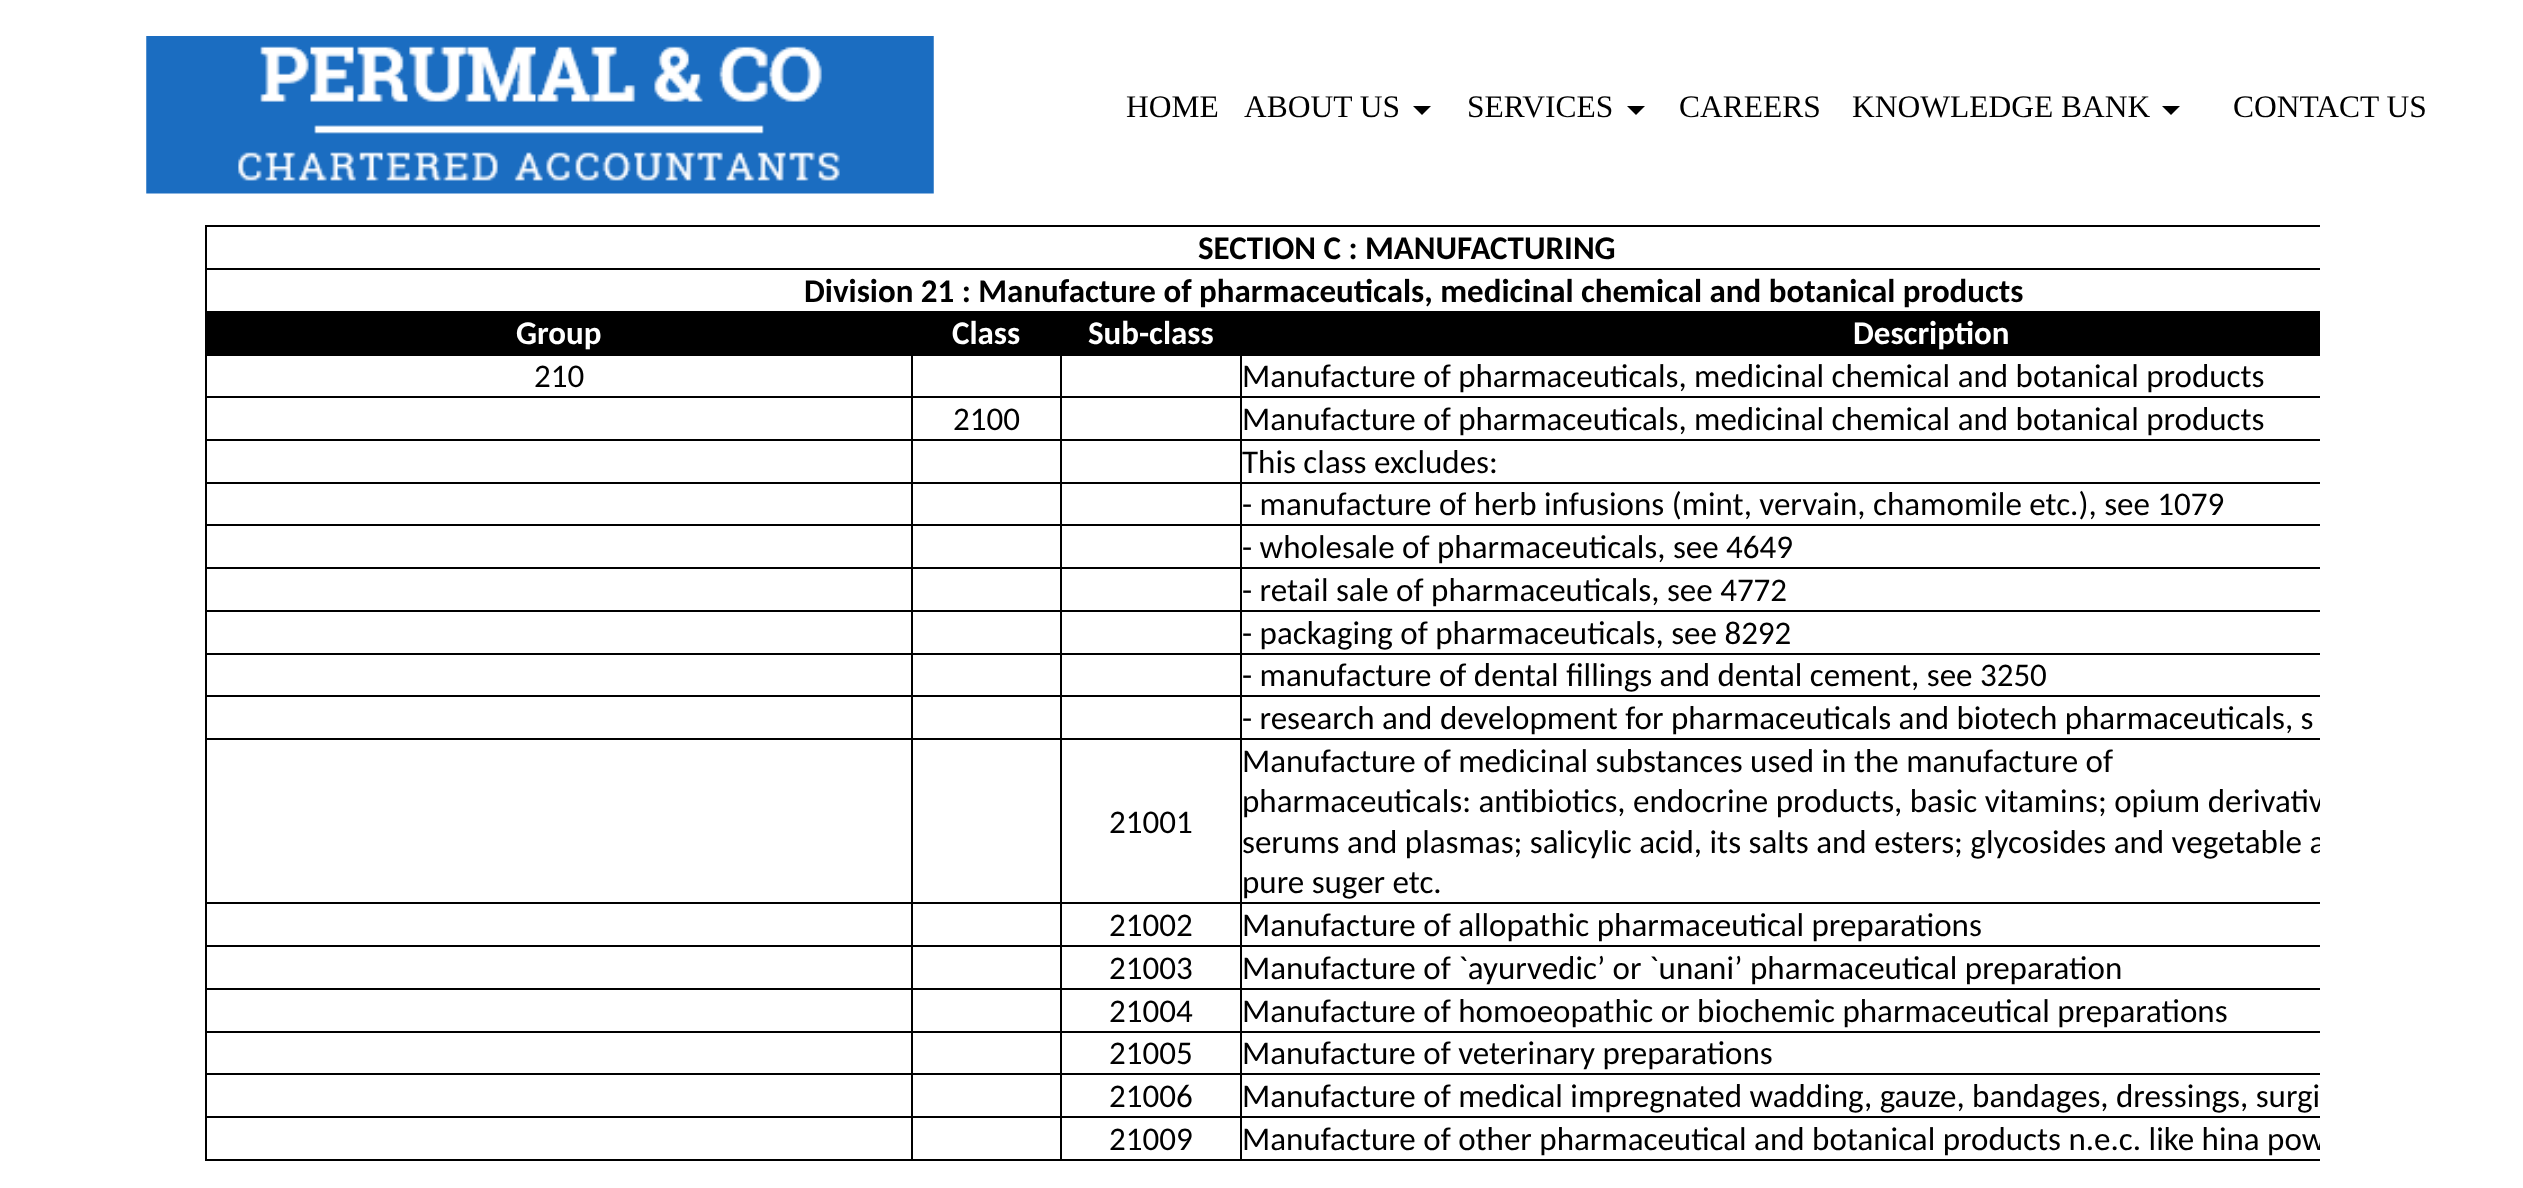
(async () => {
    const canvas = document.querySelector("canvas");
    canvas.width = 2523;
    canvas.height = 1188;
    const context = canvas.getContext("2d");
    context.miterLimit = 4;
    context.fontKerning = "normal";
    function write(s, x, y, font, color) {
        context.font = font;
        context.fillStyle = color;
        context.fillText(s, x, y);
    }
    function block(x, y, w, h, color) {
        context.fillStyle = color;
        context.fillRect(x, y, w, h);
    }
    async function photo(src, x, y, w, h) {
        const img = new Image();
        img.src = src;
        await img.decode();
        context.drawImage(img, x, y, w, h);
    }

    block(0, 0, 2523, 1188, "rgb(255, 255, 255)");
    await photo("media/1.png", 146, 36, 788, 158);
    write("HOME", 1126, 117, "31.5px Liberation Serif", "rgb(0, 0, 0)");
    write("ABOUT US", 1244, 117, "31.5px Liberation Serif", "rgb(0, 0, 0)");
    context.beginPath();
    context.moveTo(1413, 106);
    context.lineTo(1431, 106);
    context.lineTo(1422, 115);
    context.closePath();
    context.fill();
    write("SERVICES", 1467, 117, "31.5px Liberation Serif", "rgb(0, 0, 0)");
    context.beginPath();
    context.moveTo(1627, 106);
    context.lineTo(1645, 106);
    context.lineTo(1636, 115);
    context.closePath();
    context.fill();
    write("CAREERS", 1679, 117, "31.5px Liberation Serif", "rgb(0, 0, 0)");
    write("KNOWLEDGE BANK", 1852, 117, "31.5px Liberation Serif", "rgb(0, 0, 0)");
    context.beginPath();
    context.moveTo(2162, 106);
    context.lineTo(2180, 106);
    context.lineTo(2171, 115);
    context.closePath();
    context.fill();
    write("CONTACT US", 2233, 117, "31.5px Liberation Serif", "rgb(0, 0, 0)");
    block(205, 225, 2115, 2, "rgb(0, 0, 0)");
    block(205, 268, 2115, 2, "rgb(0, 0, 0)");
    block(1240, 1159, 1080, 2, "rgb(0, 0, 0)");
    block(1240, 1116, 2, 45, "rgb(0, 0, 0)");
    block(1240, 1116, 1080, 2, "rgb(0, 0, 0)");
    block(1240, 1073, 2, 45, "rgb(0, 0, 0)");
    block(1240, 1073, 1080, 2, "rgb(0, 0, 0)");
    block(1240, 1031, 2, 45, "rgb(0, 0, 0)");
    block(1240, 1031, 1080, 2, "rgb(0, 0, 0)");
    block(1240, 988, 2, 45, "rgb(0, 0, 0)");
    block(1240, 988, 1080, 2, "rgb(0, 0, 0)");
    block(1240, 945, 2, 45, "rgb(0, 0, 0)");
    block(1240, 945, 1080, 2, "rgb(0, 0, 0)");
    block(1240, 902, 2, 45, "rgb(0, 0, 0)");
    block(1240, 902, 1080, 2, "rgb(0, 0, 0)");
    block(1240, 738, 2, 167, "rgb(0, 0, 0)");
    block(1240, 738, 1080, 2, "rgb(0, 0, 0)");
    block(1240, 695, 2, 45, "rgb(0, 0, 0)");
    block(1240, 695, 1080, 2, "rgb(0, 0, 0)");
    block(1240, 653, 2, 45, "rgb(0, 0, 0)");
    block(1240, 653, 1080, 2, "rgb(0, 0, 0)");
    block(1240, 610, 2, 45, "rgb(0, 0, 0)");
    block(1240, 610, 1080, 2, "rgb(0, 0, 0)");
    block(1240, 567, 2, 45, "rgb(0, 0, 0)");
    block(1240, 567, 1080, 2, "rgb(0, 0, 0)");
    block(1240, 524, 2, 45, "rgb(0, 0, 0)");
    block(1240, 524, 1080, 2, "rgb(0, 0, 0)");
    block(1240, 482, 2, 45, "rgb(0, 0, 0)");
    block(1240, 482, 1080, 2, "rgb(0, 0, 0)");
    block(1240, 439, 2, 45, "rgb(0, 0, 0)");
    block(1240, 439, 1080, 2, "rgb(0, 0, 0)");
    block(1240, 396, 2, 45, "rgb(0, 0, 0)");
    block(1240, 396, 1080, 2, "rgb(0, 0, 0)");
    block(1240, 311, 2, 87, "rgb(0, 0, 0)");
    block(1060, 1159, 182, 2, "rgb(0, 0, 0)");
    block(1060, 1116, 2, 45, "rgb(0, 0, 0)");
    block(1060, 1116, 182, 2, "rgb(0, 0, 0)");
    block(1060, 1073, 2, 45, "rgb(0, 0, 0)");
    block(1060, 1073, 182, 2, "rgb(0, 0, 0)");
    block(1060, 1031, 2, 45, "rgb(0, 0, 0)");
    block(1060, 1031, 182, 2, "rgb(0, 0, 0)");
    block(1060, 988, 2, 45, "rgb(0, 0, 0)");
    block(1060, 988, 182, 2, "rgb(0, 0, 0)");
    block(1060, 945, 2, 45, "rgb(0, 0, 0)");
    block(1060, 945, 182, 2, "rgb(0, 0, 0)");
    block(1060, 902, 2, 45, "rgb(0, 0, 0)");
    block(1060, 902, 182, 2, "rgb(0, 0, 0)");
    block(1060, 738, 2, 167, "rgb(0, 0, 0)");
    block(1060, 738, 182, 2, "rgb(0, 0, 0)");
    block(1060, 695, 2, 45, "rgb(0, 0, 0)");
    block(1060, 695, 182, 2, "rgb(0, 0, 0)");
    block(1060, 653, 2, 45, "rgb(0, 0, 0)");
    block(1060, 653, 182, 2, "rgb(0, 0, 0)");
    block(1060, 610, 2, 45, "rgb(0, 0, 0)");
    block(1060, 610, 182, 2, "rgb(0, 0, 0)");
    block(1060, 567, 2, 45, "rgb(0, 0, 0)");
    block(1060, 567, 182, 2, "rgb(0, 0, 0)");
    block(1060, 524, 2, 45, "rgb(0, 0, 0)");
    block(1060, 524, 182, 2, "rgb(0, 0, 0)");
    block(1060, 482, 2, 45, "rgb(0, 0, 0)");
    block(1060, 482, 182, 2, "rgb(0, 0, 0)");
    block(1060, 439, 2, 45, "rgb(0, 0, 0)");
    block(1060, 439, 182, 2, "rgb(0, 0, 0)");
    block(1060, 396, 2, 45, "rgb(0, 0, 0)");
    block(1060, 396, 182, 2, "rgb(0, 0, 0)");
    block(1060, 311, 2, 87, "rgb(0, 0, 0)");
    block(911, 1159, 151, 2, "rgb(0, 0, 0)");
    block(911, 1116, 2, 45, "rgb(0, 0, 0)");
    block(911, 1116, 151, 2, "rgb(0, 0, 0)");
    block(911, 1073, 2, 45, "rgb(0, 0, 0)");
    block(911, 1073, 151, 2, "rgb(0, 0, 0)");
    block(911, 1031, 2, 45, "rgb(0, 0, 0)");
    block(911, 1031, 151, 2, "rgb(0, 0, 0)");
    block(911, 988, 2, 45, "rgb(0, 0, 0)");
    block(911, 988, 151, 2, "rgb(0, 0, 0)");
    block(911, 945, 2, 45, "rgb(0, 0, 0)");
    block(911, 945, 151, 2, "rgb(0, 0, 0)");
    block(911, 902, 2, 45, "rgb(0, 0, 0)");
    block(911, 902, 151, 2, "rgb(0, 0, 0)");
    block(911, 738, 2, 167, "rgb(0, 0, 0)");
    block(911, 738, 151, 2, "rgb(0, 0, 0)");
    block(911, 695, 2, 45, "rgb(0, 0, 0)");
    block(911, 695, 151, 2, "rgb(0, 0, 0)");
    block(911, 653, 2, 45, "rgb(0, 0, 0)");
    block(911, 653, 151, 2, "rgb(0, 0, 0)");
    block(911, 610, 2, 45, "rgb(0, 0, 0)");
    block(911, 610, 151, 2, "rgb(0, 0, 0)");
    block(911, 567, 2, 45, "rgb(0, 0, 0)");
    block(911, 567, 151, 2, "rgb(0, 0, 0)");
    block(911, 524, 2, 45, "rgb(0, 0, 0)");
    block(911, 524, 151, 2, "rgb(0, 0, 0)");
    block(911, 482, 2, 45, "rgb(0, 0, 0)");
    block(911, 482, 151, 2, "rgb(0, 0, 0)");
    block(911, 439, 2, 45, "rgb(0, 0, 0)");
    block(911, 439, 151, 2, "rgb(0, 0, 0)");
    block(911, 396, 2, 45, "rgb(0, 0, 0)");
    block(911, 396, 151, 2, "rgb(0, 0, 0)");
    block(911, 311, 2, 87, "rgb(0, 0, 0)");
    block(205, 1159, 709, 2, "rgb(0, 0, 0)");
    block(205, 1116, 2, 45, "rgb(0, 0, 0)");
    block(205, 1116, 709, 2, "rgb(0, 0, 0)");
    block(205, 1073, 2, 45, "rgb(0, 0, 0)");
    block(205, 1073, 709, 2, "rgb(0, 0, 0)");
    block(205, 1031, 2, 45, "rgb(0, 0, 0)");
    block(205, 1031, 709, 2, "rgb(0, 0, 0)");
    block(205, 988, 2, 45, "rgb(0, 0, 0)");
    block(205, 988, 709, 2, "rgb(0, 0, 0)");
    block(205, 945, 2, 45, "rgb(0, 0, 0)");
    block(205, 945, 709, 2, "rgb(0, 0, 0)");
    block(205, 902, 2, 45, "rgb(0, 0, 0)");
    block(205, 902, 709, 2, "rgb(0, 0, 0)");
    block(205, 738, 2, 167, "rgb(0, 0, 0)");
    block(205, 738, 709, 2, "rgb(0, 0, 0)");
    block(205, 695, 2, 45, "rgb(0, 0, 0)");
    block(205, 695, 709, 2, "rgb(0, 0, 0)");
    block(205, 653, 2, 45, "rgb(0, 0, 0)");
    block(205, 653, 709, 2, "rgb(0, 0, 0)");
    block(205, 610, 2, 45, "rgb(0, 0, 0)");
    block(205, 610, 709, 2, "rgb(0, 0, 0)");
    block(205, 567, 2, 45, "rgb(0, 0, 0)");
    block(205, 567, 709, 2, "rgb(0, 0, 0)");
    block(205, 524, 2, 45, "rgb(0, 0, 0)");
    block(205, 524, 709, 2, "rgb(0, 0, 0)");
    block(205, 482, 2, 45, "rgb(0, 0, 0)");
    block(205, 482, 709, 2, "rgb(0, 0, 0)");
    block(205, 439, 2, 45, "rgb(0, 0, 0)");
    block(205, 439, 709, 2, "rgb(0, 0, 0)");
    block(205, 396, 2, 45, "rgb(0, 0, 0)");
    block(205, 396, 709, 2, "rgb(0, 0, 0)");
    block(205, 311, 2, 87, "rgb(0, 0, 0)");
    block(205, 311, 2115, 2, "rgb(0, 0, 0)");
    block(205, 268, 2, 45, "rgb(0, 0, 0)");
    block(205, 225, 2, 45, "rgb(0, 0, 0)");
    write("SECTION C : MANUFACTURING", 1198, 259, "bold 33px Carlito", "rgb(0, 0, 0)");
    write("Division 21 : Manufacture of pharmaceuticals, medicinal chemical and botanical products", 804, 302, "bold 33px Carlito", "rgb(0, 0, 0)");
    block(207, 313, 704, 43, "rgb(0, 0, 0)");
    write("Group", 516, 344, "bold 33px Carlito", "rgb(255, 255, 255)");
    block(913, 313, 147, 43, "rgb(0, 0, 0)");
    write("Class", 952, 344, "bold 33px Carlito", "rgb(255, 255, 255)");
    block(1062, 313, 178, 43, "rgb(0, 0, 0)");
    write("Sub-class", 1088, 344, "bold 33px Carlito", "rgb(255, 255, 255)");
    block(1242, 313, 1078, 43, "rgb(0, 0, 0)");
    write("Description", 1853, 344, "bold 33px Carlito", "rgb(255, 255, 255)");
    write("210", 534, 387, "33px Carlito", "rgb(0, 0, 0)");
    write("Manufacture of pharmaceuticals, medicinal chemical and botanical products", 1242, 387, "33px Carlito", "rgb(0, 0, 0)");
    write("2100", 953, 430, "33px Carlito", "rgb(0, 0, 0)");
    write("Manufacture of pharmaceuticals, medicinal chemical and botanical products", 1242, 430, "33px Carlito", "rgb(0, 0, 0)");
    write("This class excludes:", 1242, 473, "33px Carlito", "rgb(0, 0, 0)");
    write("- manufacture of herb infusions (mint, vervain, chamomile etc.), see 1079", 1242, 515, "33px Carlito", "rgb(0, 0, 0)");
    write("- wholesale of pharmaceuticals, see 4649", 1242, 558, "33px Carlito", "rgb(0, 0, 0)");
    write("- retail sale of pharmaceuticals, see 4772", 1242, 601, "33px Carlito", "rgb(0, 0, 0)");
    write("- packaging of pharmaceuticals, see 8292", 1242, 644, "33px Carlito", "rgb(0, 0, 0)");
    write("- manufacture of dental fillings and dental cement, see 3250", 1242, 686, "33px Carlito", "rgb(0, 0, 0)");
    write("- research and development for pharmaceuticals and biotech pharmaceuticals, s", 1242, 729, "33px Carlito", "rgb(0, 0, 0)");
    write("21001", 1109, 833, "33px Carlito", "rgb(0, 0, 0)");
    write("Manufacture of medicinal substances used in the manufacture of", 1242, 772, "33px Carlito", "rgb(0, 0, 0)");
    context.save();
    context.beginPath();
    context.rect(205, 225, 2115, 936);
    context.clip();
    write("pharmaceuticals: antibiotics, endocrine products, basic vitamins; opium derivativ", 1242, 812, "33px Carlito", "rgb(0, 0, 0)");
    write("serums and plasmas; salicylic acid, its salts and esters; glycosides and vegetable a", 1242, 853, "33px Carlito", "rgb(0, 0, 0)");
    context.restore();
    write("pure suger etc.", 1242, 893, "33px Carlito", "rgb(0, 0, 0)");
    write("21002", 1109, 936, "33px Carlito", "rgb(0, 0, 0)");
    write("Manufacture of allopathic pharmaceutical preparations", 1242, 936, "33px Carlito", "rgb(0, 0, 0)");
    write("21003", 1109, 979, "33px Carlito", "rgb(0, 0, 0)");
    write("Manufacture of `ayurvedic’ or `unani’ pharmaceutical preparation", 1242, 979, "33px Carlito", "rgb(0, 0, 0)");
    write("21004", 1109, 1022, "33px Carlito", "rgb(0, 0, 0)");
    write("Manufacture of homoeopathic or biochemic pharmaceutical preparations", 1242, 1022, "33px Carlito", "rgb(0, 0, 0)");
    write("21005", 1109, 1064, "33px Carlito", "rgb(0, 0, 0)");
    write("Manufacture of veterinary preparations", 1242, 1064, "33px Carlito", "rgb(0, 0, 0)");
    write("21006", 1109, 1107, "33px Carlito", "rgb(0, 0, 0)");
    write("Manufacture of medical impregnated wadding, gauze, bandages, dressings, surgi", 1242, 1107, "33px Carlito", "rgb(0, 0, 0)");
    write("21009", 1109, 1150, "33px Carlito", "rgb(0, 0, 0)");
    context.save();
    context.beginPath();
    context.rect(205, 225, 2115, 936);
    context.clip();
    write("Manufacture of other pharmaceutical and botanical products n.e.c. like hina pow", 1242, 1150, "33px Carlito", "rgb(0, 0, 0)");
    context.restore();
})();
